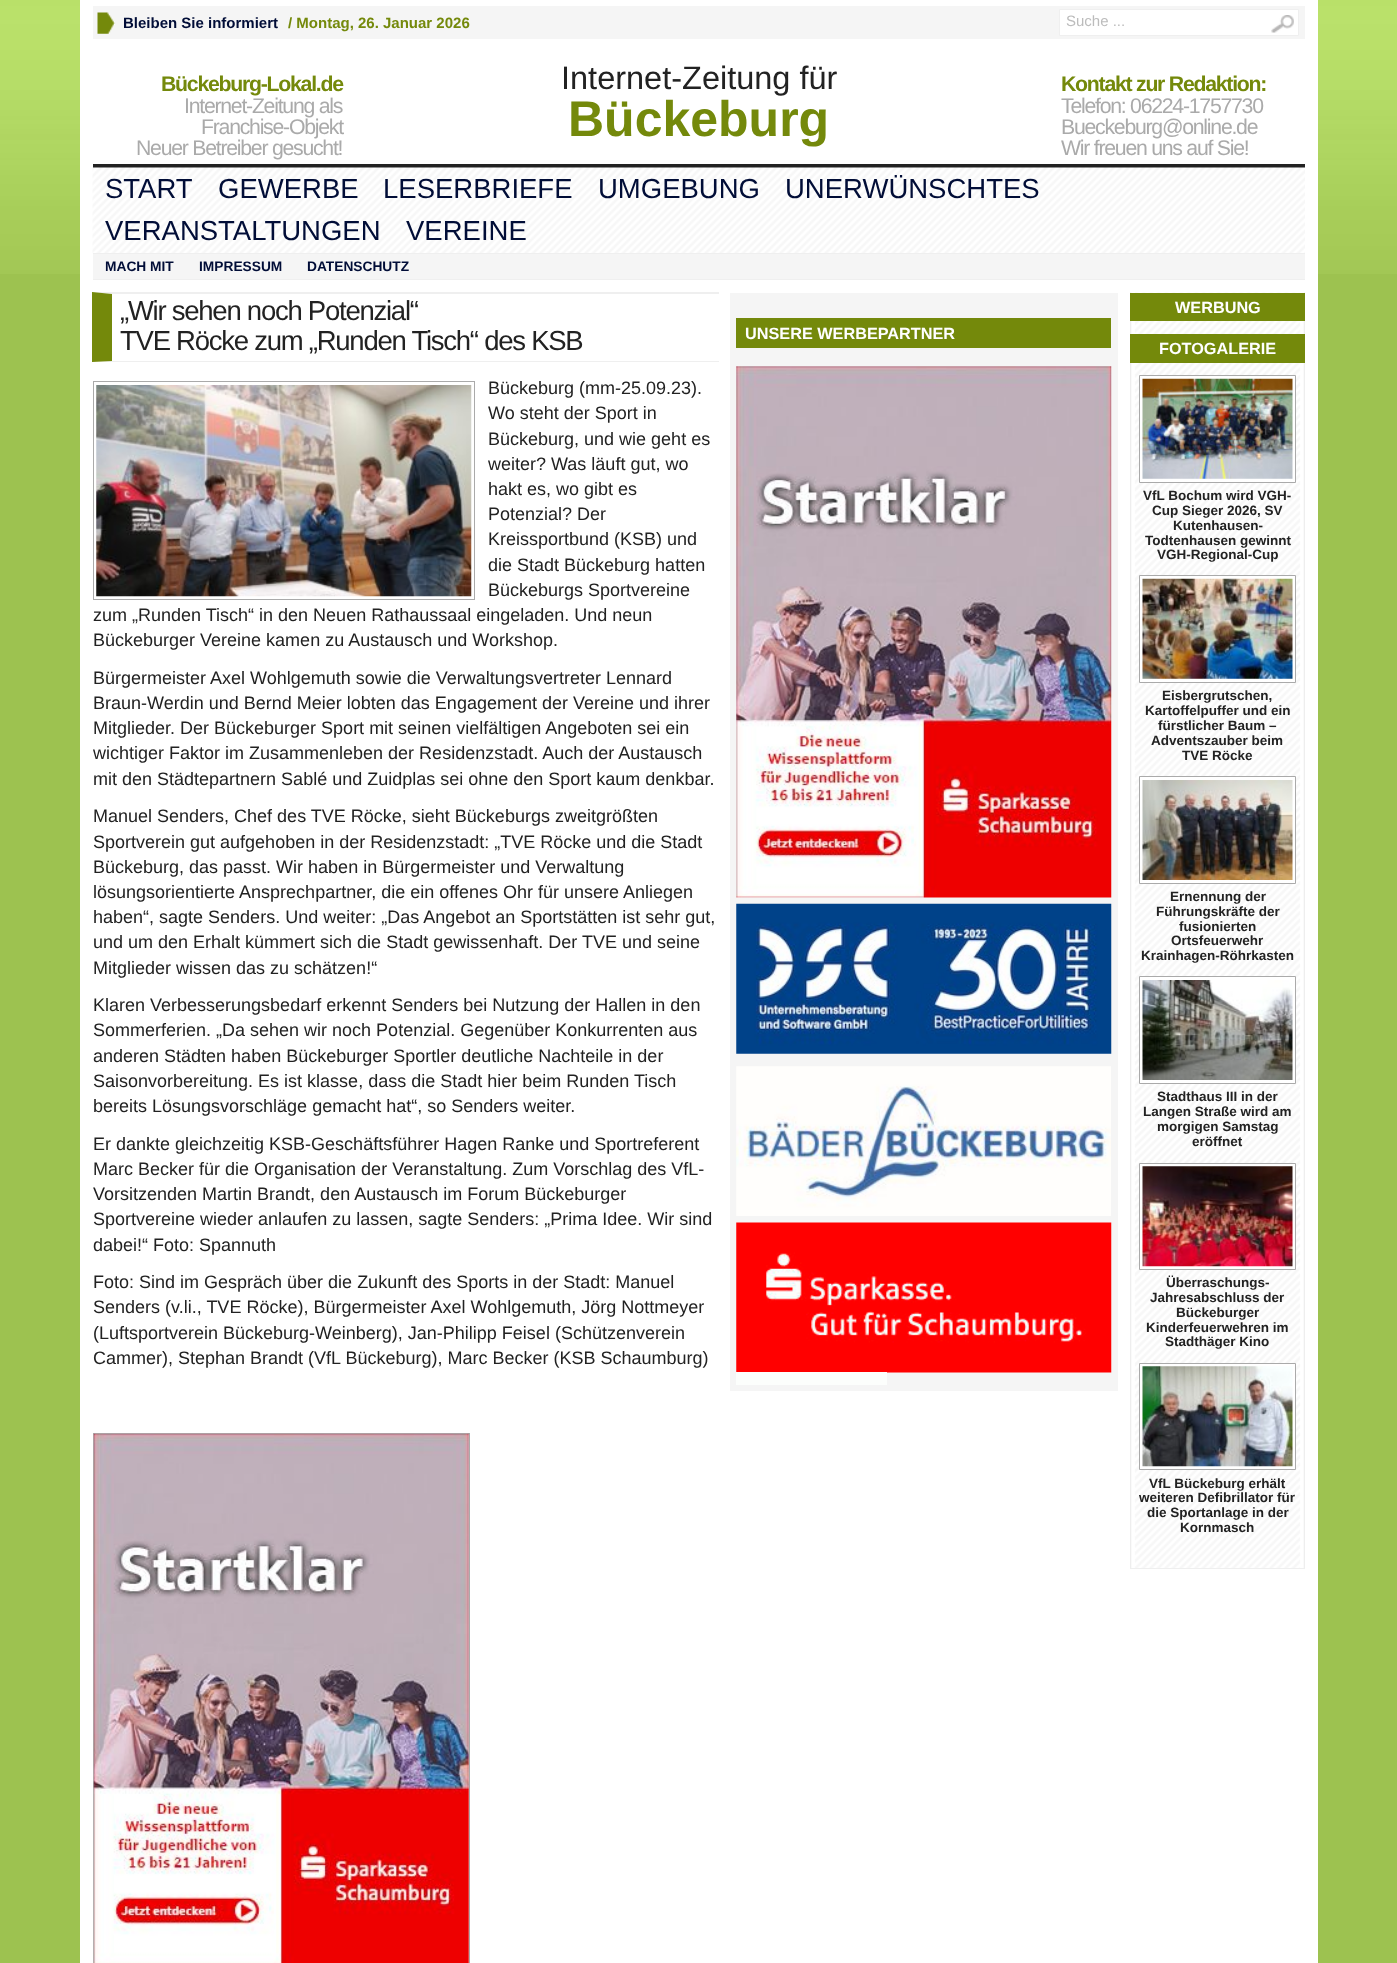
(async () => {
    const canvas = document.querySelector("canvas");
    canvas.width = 1397;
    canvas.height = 1963;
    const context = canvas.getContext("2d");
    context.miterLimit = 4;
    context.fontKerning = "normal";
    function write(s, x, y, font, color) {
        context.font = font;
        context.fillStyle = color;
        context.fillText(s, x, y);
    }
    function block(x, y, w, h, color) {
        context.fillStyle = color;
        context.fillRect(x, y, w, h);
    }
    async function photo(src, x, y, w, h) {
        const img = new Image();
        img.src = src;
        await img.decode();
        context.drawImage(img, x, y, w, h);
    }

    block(0, 0, 1397, 1963, "rgb(157, 194, 80)");
    await photo("media/1.png", 0, 0, 1397, 274);
    block(80, 0, 1238, 1963, "rgb(255, 255, 255)");
    block(93, 6, 1212, 33, "rgb(245, 245, 245)");
    await photo("media/2.png", 97, 12, 19, 22);
    write("Bleiben Sie informiert", 123, 28, "bold 15px Liberation Sans", "rgb(1, 13, 55)");
    write("/ Montag, 26. Januar 2026", 288, 28, "bold 15px Liberation Sans", "rgb(116, 137, 11)");
    context.fillStyle = "rgb(255, 255, 255)";
    context.beginPath();
    context.rect(1059.5, 9.5, 239, 26);
    context.fill();
    context.strokeStyle = "rgb(239, 239, 239)";
    context.stroke();
    write("Suche ...", 1066, 26, "15px Liberation Sans", "rgb(188, 188, 188)");
    await photo("media/3.png", 1271, 15, 23, 18);
    block(93, 164, 1212, 4, "rgb(34, 34, 34)");
    context.letterSpacing = "-1.25px";
    write("Bückeburg-Lokal.de", 161, 91, "bold 21.25px Liberation Sans", "rgb(116, 137, 11)");
    write("Internet-Zeitung als", 184, 113, "21.25px Liberation Sans", "rgb(170, 170, 170)");
    write("Franchise-Objekt", 201, 134, "21.25px Liberation Sans", "rgb(170, 170, 170)");
    write("Neuer Betreiber gesucht!", 136, 155, "21.25px Liberation Sans", "rgb(170, 170, 170)");
    context.letterSpacing = "0px";
    write("Internet-Zeitung für", 561, 89, "32.5px Liberation Sans", "rgb(34, 34, 34)");
    write("Bückeburg", 568, 136, "bold 50px Liberation Sans", "rgb(116, 137, 11)");
    context.letterSpacing = "-1.25px";
    write("Kontakt zur Redaktion:", 1061, 91, "bold 21.25px Liberation Sans", "rgb(116, 137, 11)");
    write("Telefon: 06224-1757730", 1061, 113, "21.25px Liberation Sans", "rgb(170, 170, 170)");
    write("Bueckeburg@online.de", 1061, 134, "21.25px Liberation Sans", "rgb(170, 170, 170)");
    write("Wir freuen uns auf Sie!", 1061, 155, "21.25px Liberation Sans", "rgb(170, 170, 170)");
    await photo("media/4.png", 92, 167, 1213, 87);
    block(93, 253, 1212, 1, "rgb(239, 239, 239)");
    context.letterSpacing = "0px";
    write("START", 105, 198, "27.5px Liberation Sans", "rgb(1, 13, 55)");
    write("GEWERBE", 218, 198, "27.5px Liberation Sans", "rgb(1, 13, 55)");
    write("LESERBRIEFE", 383, 198, "27.5px Liberation Sans", "rgb(1, 13, 55)");
    write("UMGEBUNG", 598, 198, "27.5px Liberation Sans", "rgb(1, 13, 55)");
    write("UNERWÜNSCHTES", 785, 198, "27.5px Liberation Sans", "rgb(1, 13, 55)");
    write("VERANSTALTUNGEN", 105, 240, "27.5px Liberation Sans", "rgb(1, 13, 55)");
    write("VEREINE", 406, 240, "27.5px Liberation Sans", "rgb(1, 13, 55)");
    block(93, 254, 1212, 25, "rgb(245, 245, 245)");
    block(93, 279, 1212, 1, "rgb(239, 239, 239)");
    write("MACH MIT", 105, 271, "bold 13.75px Liberation Sans", "rgb(1, 13, 55)");
    write("IMPRESSUM", 199, 271, "bold 13.75px Liberation Sans", "rgb(1, 13, 55)");
    write("DATENSCHUTZ", 307, 271, "bold 13.75px Liberation Sans", "rgb(1, 13, 55)");
    context.fillStyle = "rgb(239, 239, 239)";
    context.beginPath();
    context.moveTo(92, 292);
    context.lineTo(719, 292);
    context.lineTo(719, 294);
    context.lineTo(112, 294);
    context.closePath();
    context.fill();
    context.beginPath();
    context.moveTo(719, 362);
    context.lineTo(92, 362);
    context.lineTo(112, 361);
    context.lineTo(719, 361);
    context.closePath();
    context.fill();
    context.fillStyle = "rgb(116, 137, 11)";
    context.beginPath();
    context.moveTo(92, 362);
    context.lineTo(92, 292);
    context.lineTo(112, 294);
    context.lineTo(112, 361);
    context.closePath();
    context.fill();
    context.letterSpacing = "-1.25px";
    write("„Wir sehen noch Potenzial“", 120, 320, "27.5px Liberation Sans", "rgb(34, 34, 34)");
    write("TVE Röcke zum „Runden Tisch“ des KSB", 120, 350, "27.5px Liberation Sans", "rgb(34, 34, 34)");
    context.strokeStyle = "rgb(170, 170, 170)";
    context.strokeRect(93.5, 381.5, 381, 218);
    await photo("media/5.png", 96, 385, 376, 212);
    context.letterSpacing = "0px";
    write("Bückeburg (mm-25.09.23).", 488, 394, "18px Liberation Sans", "rgb(34, 34, 34)");
    write("Wo steht der Sport in", 488, 419, "18px Liberation Sans", "rgb(34, 34, 34)");
    write("Bückeburg, und wie geht es", 488, 445, "18px Liberation Sans", "rgb(34, 34, 34)");
    write("weiter? Was läuft gut, wo", 488, 470, "18px Liberation Sans", "rgb(34, 34, 34)");
    write("hakt es, wo gibt es", 488, 495, "18px Liberation Sans", "rgb(34, 34, 34)");
    write("Potenzial? Der", 488, 520, "18px Liberation Sans", "rgb(34, 34, 34)");
    write("Kreissportbund (KSB) und", 488, 545, "18px Liberation Sans", "rgb(34, 34, 34)");
    write("die Stadt Bückeburg hatten", 488, 571, "18px Liberation Sans", "rgb(34, 34, 34)");
    write("Bückeburgs Sportvereine", 488, 596, "18px Liberation Sans", "rgb(34, 34, 34)");
    write("zum „Runden Tisch“ in den Neuen Rathaussaal eingeladen. Und neun", 93, 621, "18px Liberation Sans", "rgb(34, 34, 34)");
    write("Bückeburger Vereine kamen zu Austausch und Workshop.", 93, 646, "18px Liberation Sans", "rgb(34, 34, 34)");
    write("Bürgermeister Axel Wohlgemuth sowie die Verwaltungsvertreter Lennard", 93, 684, "18px Liberation Sans", "rgb(34, 34, 34)");
    write("Braun-Werdin und Bernd Meier lobten das Engagement der Vereine und ihrer", 93, 709, "18px Liberation Sans", "rgb(34, 34, 34)");
    write("Mitglieder. Der Bückeburger Sport mit seinen vielfältigen Angeboten sei ein", 93, 734, "18px Liberation Sans", "rgb(34, 34, 34)");
    write("wichtiger Faktor im Zusammenleben der Residenzstadt. Auch der Austausch", 93, 759, "18px Liberation Sans", "rgb(34, 34, 34)");
    write("mit den Städtepartnern Sablé und Zuidplas sei ohne den Sport kaum denkbar.", 93, 785, "18px Liberation Sans", "rgb(34, 34, 34)");
    write("Manuel Senders, Chef des TVE Röcke, sieht Bückeburgs zweitgrößten", 93, 822, "18px Liberation Sans", "rgb(34, 34, 34)");
    write("Sportverein gut aufgehoben in der Residenzstadt: „TVE Röcke und die Stadt", 93, 848, "18px Liberation Sans", "rgb(34, 34, 34)");
    write("Bückeburg, das passt. Wir haben in Bürgermeister und Verwaltung", 93, 873, "18px Liberation Sans", "rgb(34, 34, 34)");
    write("lösungsorientierte Ansprechpartner, die ein offenes Ohr für unsere Anliegen", 93, 898, "18px Liberation Sans", "rgb(34, 34, 34)");
    write("haben“, sagte Senders. Und weiter: „Das Angebot an Sportstätten ist sehr gut,", 93, 923, "18px Liberation Sans", "rgb(34, 34, 34)");
    write("und um den Erhalt kümmert sich die Stadt gewissenhaft. Der TVE und seine", 93, 948, "18px Liberation Sans", "rgb(34, 34, 34)");
    write("Mitglieder wissen das zu schätzen!“", 93, 974, "18px Liberation Sans", "rgb(34, 34, 34)");
    write("Klaren Verbesserungsbedarf erkennt Senders bei Nutzung der Hallen in den", 93, 1011, "18px Liberation Sans", "rgb(34, 34, 34)");
    write("Sommerferien. „Da sehen wir noch Potenzial. Gegenüber Konkurrenten aus", 93, 1036, "18px Liberation Sans", "rgb(34, 34, 34)");
    write("anderen Städten haben Bückeburger Sportler deutliche Nachteile in der", 93, 1062, "18px Liberation Sans", "rgb(34, 34, 34)");
    write("Saisonvorbereitung. Es ist klasse, dass die Stadt hier beim Runden Tisch", 93, 1087, "18px Liberation Sans", "rgb(34, 34, 34)");
    write("bereits Lösungsvorschläge gemacht hat“, so Senders weiter.", 93, 1112, "18px Liberation Sans", "rgb(34, 34, 34)");
    write("Er dankte gleichzeitig KSB-Geschäftsführer Hagen Ranke und Sportreferent", 93, 1150, "18px Liberation Sans", "rgb(34, 34, 34)");
    write("Marc Becker für die Organisation der Veranstaltung. Zum Vorschlag des VfL-", 93, 1175, "18px Liberation Sans", "rgb(34, 34, 34)");
    write("Vorsitzenden Martin Brandt, den Austausch im Forum Bückeburger", 93, 1200, "18px Liberation Sans", "rgb(34, 34, 34)");
    write("Sportvereine wieder anlaufen zu lassen, sagte Senders: „Prima Idee. Wir sind", 93, 1225, "18px Liberation Sans", "rgb(34, 34, 34)");
    write("dabei!“ Foto: Spannuth", 93, 1251, "18px Liberation Sans", "rgb(34, 34, 34)");
    write("Foto: Sind im Gespräch über die Zukunft des Sports in der Stadt: Manuel", 93, 1288, "18px Liberation Sans", "rgb(34, 34, 34)");
    write("Senders (v.li., TVE Röcke), Bürgermeister Axel Wohlgemuth, Jörg Nottmeyer", 93, 1313, "18px Liberation Sans", "rgb(34, 34, 34)");
    write("(Luftsportverein Bückeburg-Weinberg), Jan-Philipp Feisel (Schützenverein", 93, 1339, "18px Liberation Sans", "rgb(34, 34, 34)");
    write("Cammer), Stephan Brandt (VfL Bückeburg), Marc Becker (KSB Schaumburg)", 93, 1364, "18px Liberation Sans", "rgb(34, 34, 34)");
    context.strokeRect(93.5, 1433.5, 376, 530);
    await photo("media/6.png", 93, 1433, 376, 530);
    block(730, 293, 388, 1098, "rgb(245, 245, 245)");
    block(736, 318, 375, 30, "rgb(116, 137, 11)");
    write("UNSERE WERBEPARTNER", 745, 339, "bold 16.25px Liberation Sans", "rgb(255, 255, 255)");
    await photo("media/7.png", 736, 366, 376, 532);
    await photo("media/8.png", 736, 903, 376, 151);
    await photo("media/9.png", 736, 1066, 375, 150);
    await photo("media/10.png", 736, 1222, 376, 151);
    block(736, 1372, 151, 13, "rgb(252, 254, 252)");
    await photo("media/11.png", 1130, 292, 175, 1276);
    block(1130, 1568, 175, 1, "rgb(239, 239, 239)");
    block(1130, 293, 175, 28, "rgb(116, 137, 11)");
    write("WERBUNG", 1175, 313, "bold 16.25px Liberation Sans", "rgb(255, 255, 255)");
    block(1130, 334, 175, 29, "rgb(116, 137, 11)");
    write("FOTOGALERIE", 1159, 354, "bold 16.25px Liberation Sans", "rgb(255, 255, 255)");
    context.beginPath();
    context.rect(1139.5, 375.5, 156, 107);
    context.fill();
    context.stroke();
    await photo("media/12.png", 1142, 378, 151, 101);
    write("VfL Bochum wird VGH-", 1143, 500, "bold 13.5px Liberation Sans", "rgb(34, 34, 34)");
    write("Cup Sieger 2026, SV", 1152, 515, "bold 13.5px Liberation Sans", "rgb(34, 34, 34)");
    write("Kutenhausen-", 1173, 530, "bold 13.5px Liberation Sans", "rgb(34, 34, 34)");
    write("Todtenhausen gewinnt", 1145, 545, "bold 13.5px Liberation Sans", "rgb(34, 34, 34)");
    write("VGH-Regional-Cup", 1157, 559, "bold 13.5px Liberation Sans", "rgb(34, 34, 34)");
    context.fillStyle = "rgb(255, 255, 255)";
    context.beginPath();
    context.rect(1139.5, 575.5, 156, 107);
    context.fill();
    context.stroke();
    await photo("media/13.png", 1142, 578, 151, 101);
    write("Eisbergrutschen,", 1162, 700, "bold 13.5px Liberation Sans", "rgb(34, 34, 34)");
    write("Kartoffelpuffer und ein", 1145, 715, "bold 13.5px Liberation Sans", "rgb(34, 34, 34)");
    write("fürstlicher Baum –", 1158, 730, "bold 13.5px Liberation Sans", "rgb(34, 34, 34)");
    write("Adventszauber beim", 1151, 745, "bold 13.5px Liberation Sans", "rgb(34, 34, 34)");
    write("TVE Röcke", 1182, 760, "bold 13.5px Liberation Sans", "rgb(34, 34, 34)");
    context.fillStyle = "rgb(255, 255, 255)";
    context.beginPath();
    context.rect(1139.5, 776.5, 156, 107);
    context.fill();
    context.stroke();
    await photo("media/14.png", 1142, 780, 151, 100);
    write("Ernennung der", 1170, 901, "bold 13.5px Liberation Sans", "rgb(34, 34, 34)");
    write("Führungskräfte der", 1156, 916, "bold 13.5px Liberation Sans", "rgb(34, 34, 34)");
    write("fusionierten", 1179, 931, "bold 13.5px Liberation Sans", "rgb(34, 34, 34)");
    write("Ortsfeuerwehr", 1171, 945, "bold 13.5px Liberation Sans", "rgb(34, 34, 34)");
    write("Krainhagen-Röhrkasten", 1141, 960, "bold 13.5px Liberation Sans", "rgb(34, 34, 34)");
    context.fillStyle = "rgb(255, 255, 255)";
    context.beginPath();
    context.rect(1139.5, 976.5, 156, 107);
    context.fill();
    context.stroke();
    await photo("media/15.png", 1142, 980, 151, 100);
    write("Stadthaus III in der", 1157, 1101, "bold 13.5px Liberation Sans", "rgb(34, 34, 34)");
    write("Langen Straße wird am", 1143, 1116, "bold 13.5px Liberation Sans", "rgb(34, 34, 34)");
    write("morgigen Samstag", 1157, 1131, "bold 13.5px Liberation Sans", "rgb(34, 34, 34)");
    write("eröffnet", 1192, 1146, "bold 13.5px Liberation Sans", "rgb(34, 34, 34)");
    context.fillStyle = "rgb(255, 255, 255)";
    context.beginPath();
    context.rect(1139.5, 1163.5, 156, 106);
    context.fill();
    context.stroke();
    await photo("media/16.png", 1142, 1166, 151, 101);
    write("Überraschungs-", 1166, 1287, "bold 13.5px Liberation Sans", "rgb(34, 34, 34)");
    write("Jahresabschluss der", 1150, 1302, "bold 13.5px Liberation Sans", "rgb(34, 34, 34)");
    write("Bückeburger", 1176, 1317, "bold 13.5px Liberation Sans", "rgb(34, 34, 34)");
    write("Kinderfeuerwehren im", 1146, 1332, "bold 13.5px Liberation Sans", "rgb(34, 34, 34)");
    write("Stadthäger Kino", 1165, 1346, "bold 13.5px Liberation Sans", "rgb(34, 34, 34)");
    context.fillStyle = "rgb(255, 255, 255)";
    context.beginPath();
    context.rect(1139.5, 1363.5, 156, 106);
    context.fill();
    context.stroke();
    await photo("media/17.png", 1142, 1366, 151, 101);
    write("VfL Bückeburg erhält", 1149, 1488, "bold 13.5px Liberation Sans", "rgb(34, 34, 34)");
    write("weiteren Defibrillator für", 1139, 1502, "bold 13.5px Liberation Sans", "rgb(34, 34, 34)");
    write("die Sportanlage in der", 1147, 1517, "bold 13.5px Liberation Sans", "rgb(34, 34, 34)");
    write("Kornmasch", 1180, 1532, "bold 13.5px Liberation Sans", "rgb(34, 34, 34)");
})();
